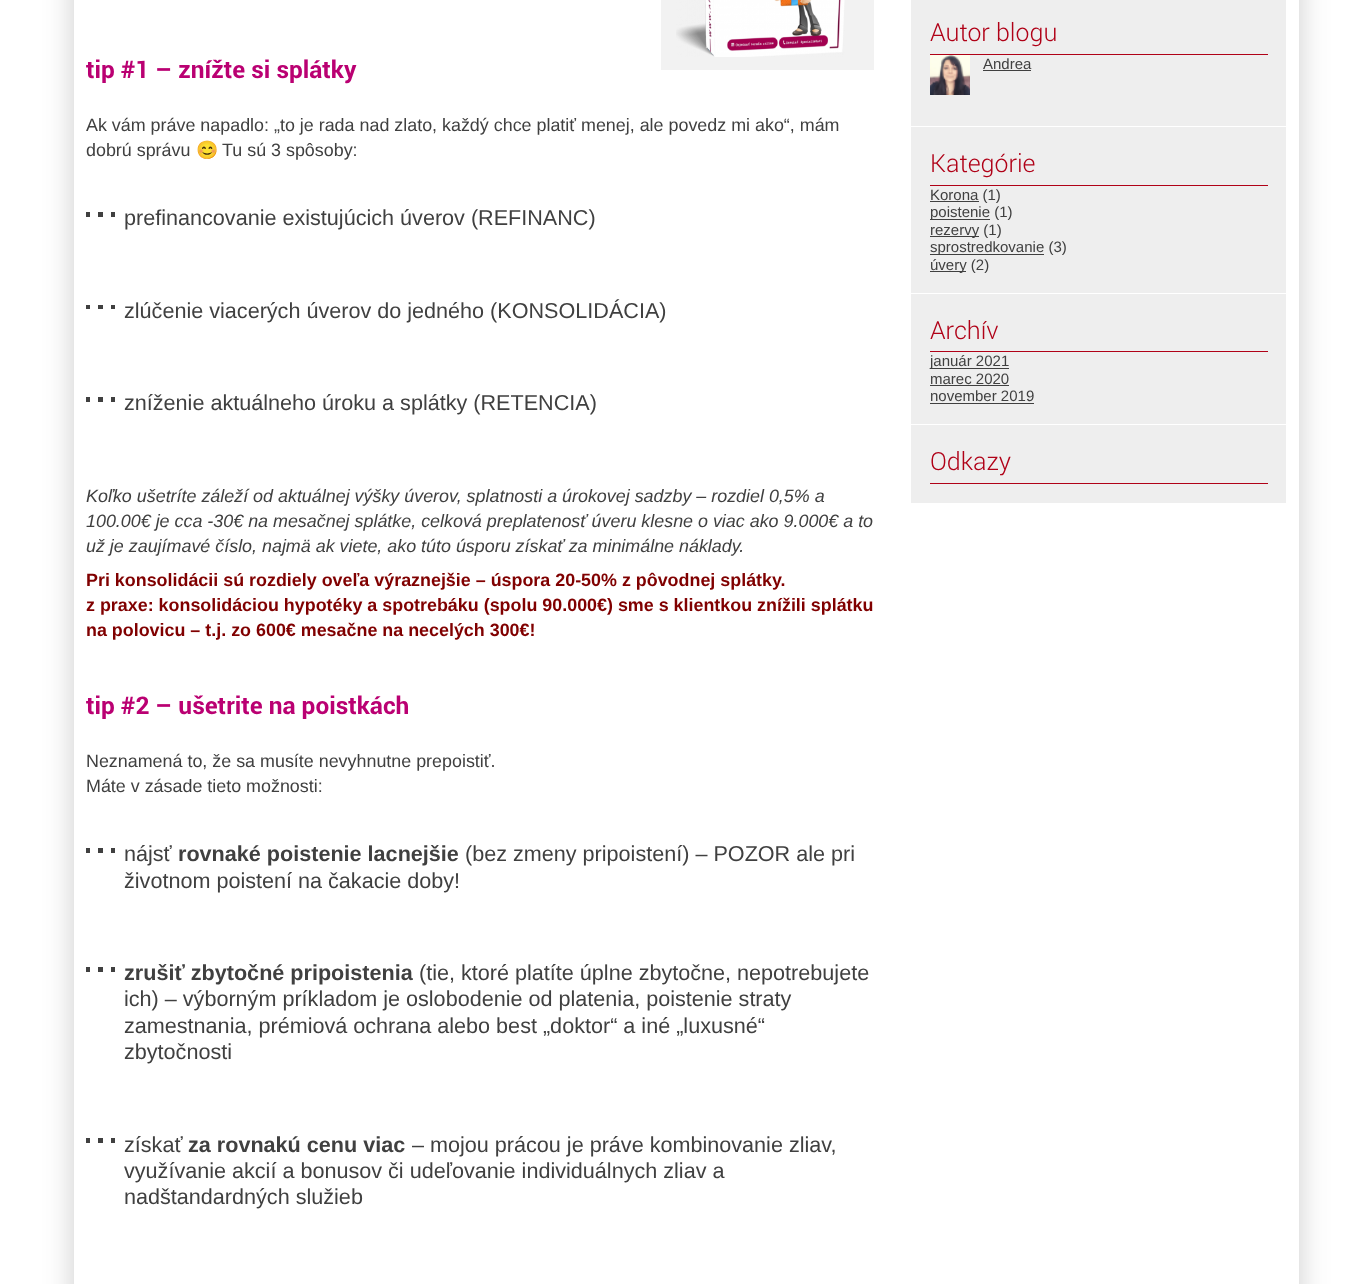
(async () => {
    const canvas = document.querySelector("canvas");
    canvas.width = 1372;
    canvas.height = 1284;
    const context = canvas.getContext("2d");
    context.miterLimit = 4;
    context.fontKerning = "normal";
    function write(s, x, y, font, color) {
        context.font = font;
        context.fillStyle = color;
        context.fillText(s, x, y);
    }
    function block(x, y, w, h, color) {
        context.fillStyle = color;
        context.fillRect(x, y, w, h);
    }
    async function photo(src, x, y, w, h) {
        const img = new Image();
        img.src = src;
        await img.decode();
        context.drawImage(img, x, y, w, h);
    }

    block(0, 0, 1372, 1284, "rgb(255, 255, 255)");
    context.save();
    context.beginPath();
    context.moveTo(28, 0);
    context.lineTo(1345, 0);
    context.lineTo(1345, 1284);
    context.lineTo(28, 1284);
    context.closePath();
    context.moveTo(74, -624);
    context.lineTo(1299, -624);
    context.lineTo(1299, 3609);
    context.lineTo(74, 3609);
    context.closePath();
    context.clip("evenodd");
    context.fillStyle = "rgba(50, 50, 50, 0.25)";
    context.filter = "blur(15px)";
    context.beginPath();
    context.rect(74, -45, 1225, 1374);
    context.fill();
    context.filter = "none";
    context.restore();
    write("tip #1 – znížte si splátky", 86, 78, "bold 24.4px Roboto", "rgb(186, 0, 114)");
    block(661, 0, 213, 70, "rgb(242, 242, 242)");
    await photo("media/1.png", 676, 0, 169, 57);
    write("Ak vám práve napadlo: „to je rada nad zlato, každý chce platiť menej, ale povedz mi ako“, mám", 86, 131, "17.9px Liberation Sans", "rgb(64, 64, 64)");
    write("dobrú správu", 86, 156, "17.9px Liberation Sans", "rgb(64, 64, 64)");
    write("😊", 196, 156, "17.9px Noto Color Emoji", "rgb(64, 64, 64)");
    write("Tu sú 3 spôsoby:", 222, 156, "17.9px Liberation Sans", "rgb(64, 64, 64)");
    block(86, 212, 4, 5, "rgb(64, 64, 64)");
    block(98, 212, 5, 5, "rgb(64, 64, 64)");
    block(111, 212, 4, 5, "rgb(64, 64, 64)");
    write("prefinancovanie existujúcich úverov (REFINANC)", 124, 225, "21.6px Liberation Sans", "rgb(64, 64, 64)");
    block(86, 305, 4, 4, "rgb(64, 64, 64)");
    block(98, 305, 5, 4, "rgb(64, 64, 64)");
    block(111, 305, 4, 4, "rgb(64, 64, 64)");
    write("zlúčenie viacerých úverov do jedného (KONSOLIDÁCIA)", 124, 318, "21.6px Liberation Sans", "rgb(64, 64, 64)");
    block(86, 397, 4, 5, "rgb(64, 64, 64)");
    block(98, 397, 5, 5, "rgb(64, 64, 64)");
    block(111, 397, 4, 5, "rgb(64, 64, 64)");
    write("zníženie aktuálneho úroku a splátky (RETENCIA)", 124, 410, "21.6px Liberation Sans", "rgb(64, 64, 64)");
    write("Koľko ušetríte záleží od aktuálnej výšky úverov, splatnosti a úrokovej sadzby – rozdiel 0,5% a", 86, 502, "italic 17.9px Liberation Sans", "rgb(64, 64, 64)");
    write("100.00€ je cca -30€ na mesačnej splátke, celková preplatenosť úveru klesne o viac ako 9.000€ a to", 86, 527, "italic 17.9px Liberation Sans", "rgb(64, 64, 64)");
    write("už je zaujímavé číslo, najmä ak viete, ako túto úsporu získať za minimálne náklady.", 86, 552, "italic 17.9px Liberation Sans", "rgb(64, 64, 64)");
    write("Pri konsolidácii sú rozdiely oveľa výraznejšie – úspora 20-50% z pôvodnej splátky.", 86, 586, "bold 17.9px Liberation Sans", "rgb(128, 0, 0)");
    write("z praxe: konsolidáciou hypotéky a spotrebáku (spolu 90.000€) sme s klientkou znížili splátku", 86, 611, "bold 17.9px Liberation Sans", "rgb(128, 0, 0)");
    write("na polovicu – t.j. zo 600€ mesačne na necelých 300€!", 86, 636, "bold 17.9px Liberation Sans", "rgb(128, 0, 0)");
    write("tip #2 – ušetrite na poistkách", 86, 714, "bold 24.4px Roboto", "rgb(186, 0, 114)");
    write("Neznamená to, že sa musíte nevyhnutne prepoistiť.", 86, 767, "17.9px Liberation Sans", "rgb(64, 64, 64)");
    write("Máte v zásade tieto možnosti:", 86, 792, "17.9px Liberation Sans", "rgb(64, 64, 64)");
    block(86, 848, 4, 5, "rgb(64, 64, 64)");
    block(98, 848, 5, 5, "rgb(64, 64, 64)");
    block(111, 848, 4, 5, "rgb(64, 64, 64)");
    write("nájsť", 124, 861, "21.6px Liberation Sans", "rgb(64, 64, 64)");
    write("rovnaké poistenie lacnejšie", 178, 861, "bold 21.6px Liberation Sans", "rgb(64, 64, 64)");
    write("(bez zmeny pripoistení) – POZOR ale pri", 465, 861, "21.6px Liberation Sans", "rgb(64, 64, 64)");
    write("životnom poistení na čakacie doby!", 124, 888, "21.6px Liberation Sans", "rgb(64, 64, 64)");
    block(86, 967, 4, 5, "rgb(64, 64, 64)");
    block(98, 967, 5, 5, "rgb(64, 64, 64)");
    block(111, 967, 4, 5, "rgb(64, 64, 64)");
    write("zrušiť zbytočné pripoistenia", 124, 980, "bold 21.6px Liberation Sans", "rgb(64, 64, 64)");
    write("(tie, ktoré platíte úplne zbytočne, nepotrebujete", 419, 980, "21.6px Liberation Sans", "rgb(64, 64, 64)");
    write("ich) – výborným príkladom je oslobodenie od platenia, poistenie straty", 124, 1006, "21.6px Liberation Sans", "rgb(64, 64, 64)");
    write("zamestnania, prémiová ochrana alebo best „doktor“ a iné „luxusné“", 124, 1033, "21.6px Liberation Sans", "rgb(64, 64, 64)");
    write("zbytočnosti", 124, 1059, "21.6px Liberation Sans", "rgb(64, 64, 64)");
    block(86, 1138, 4, 5, "rgb(64, 64, 64)");
    block(98, 1138, 5, 5, "rgb(64, 64, 64)");
    block(111, 1138, 4, 5, "rgb(64, 64, 64)");
    write("získať", 124, 1152, "21.6px Liberation Sans", "rgb(64, 64, 64)");
    write("za rovnakú cenu viac", 188, 1152, "bold 21.6px Liberation Sans", "rgb(64, 64, 64)");
    write("– mojou prácou je práve kombinovanie zliav,", 412, 1152, "21.6px Liberation Sans", "rgb(64, 64, 64)");
    write("využívanie akcií a bonusov či udeľovanie individuálnych zliav a", 124, 1178, "21.6px Liberation Sans", "rgb(64, 64, 64)");
    write("nadštandardných služieb", 124, 1204, "21.6px Liberation Sans", "rgb(64, 64, 64)");
    block(911, 0, 375, 293, "rgb(238, 238, 238)");
    block(911, 126, 375, 1, "rgb(255, 255, 255)");
    block(930, 54, 338, 1, "rgb(176, 1, 23)");
    write("Autor blogu", 930, 41, "300 25px Roboto", "rgb(176, 1, 23)");
    await photo("media/2.png", 930, 55, 40, 40);
    write("Andrea", 983, 69, "15px Liberation Sans", "rgb(64, 64, 64)");
    block(983, 70, 48, 1, "rgb(64, 64, 64)");
    block(930, 185, 338, 1, "rgb(176, 1, 23)");
    write("Kategórie", 930, 172, "300 25px Roboto", "rgb(176, 1, 23)");
    block(930, 201, 49, 1, "rgb(64, 64, 64)");
    write("Korona (1)", 930, 200, "15px Liberation Sans", "rgb(64, 64, 64)");
    block(930, 219, 60, 1, "rgb(64, 64, 64)");
    write("poistenie (1)", 930, 217, "15px Liberation Sans", "rgb(64, 64, 64)");
    block(930, 236, 49, 1, "rgb(64, 64, 64)");
    write("rezervy (1)", 930, 235, "15px Liberation Sans", "rgb(64, 64, 64)");
    block(930, 254, 114, 1, "rgb(64, 64, 64)");
    write("sprostredkovanie (3)", 930, 252, "15px Liberation Sans", "rgb(64, 64, 64)");
    block(930, 271, 36, 1, "rgb(64, 64, 64)");
    write("úvery (2)", 930, 270, "15px Liberation Sans", "rgb(64, 64, 64)");
    block(911, 294, 375, 130, "rgb(238, 238, 238)");
    block(930, 351, 338, 1, "rgb(176, 1, 23)");
    write("Archív", 930, 339, "300 25px Roboto", "rgb(176, 1, 23)");
    block(930, 368, 79, 1, "rgb(64, 64, 64)");
    write("január 2021", 930, 366, "15px Liberation Sans", "rgb(64, 64, 64)");
    write("marec 2020", 930, 384, "15px Liberation Sans", "rgb(64, 64, 64)");
    block(930, 385, 79, 1, "rgb(64, 64, 64)");
    write("november 2019", 930, 401, "15px Liberation Sans", "rgb(64, 64, 64)");
    block(930, 403, 104, 1, "rgb(64, 64, 64)");
    block(911, 425, 375, 78, "rgb(238, 238, 238)");
    block(930, 483, 338, 1, "rgb(176, 1, 23)");
    write("Odkazy", 930, 470, "300 25px Roboto", "rgb(176, 1, 23)");
})();
